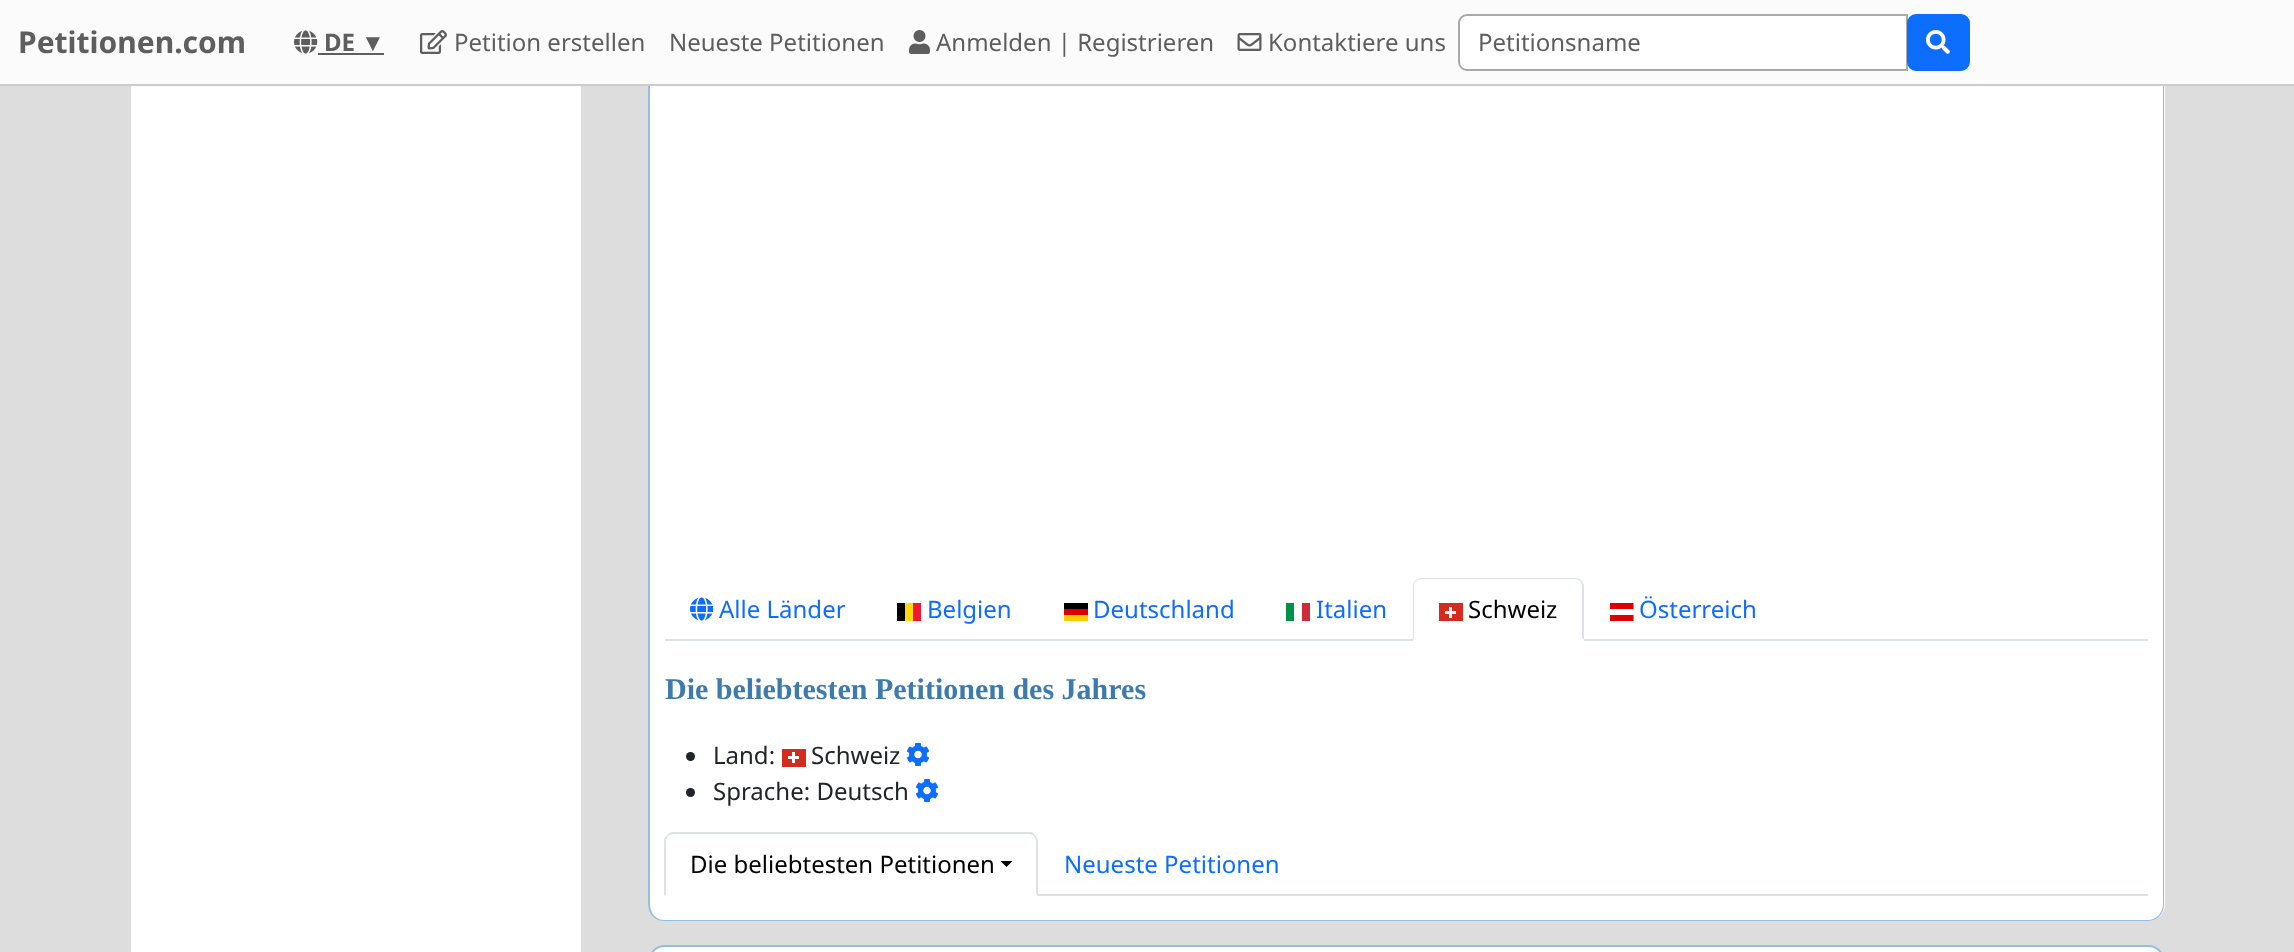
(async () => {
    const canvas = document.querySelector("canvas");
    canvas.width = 2294;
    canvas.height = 952;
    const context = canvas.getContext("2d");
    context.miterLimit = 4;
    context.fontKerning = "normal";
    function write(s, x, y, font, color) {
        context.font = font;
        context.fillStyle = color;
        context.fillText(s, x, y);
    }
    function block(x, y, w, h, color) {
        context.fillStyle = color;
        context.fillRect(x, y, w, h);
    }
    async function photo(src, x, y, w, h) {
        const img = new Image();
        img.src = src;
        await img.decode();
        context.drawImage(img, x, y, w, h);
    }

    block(0, 0, 2294, 952, "rgb(221, 221, 221)");
    block(0, 0, 2294, 84, "rgb(251, 251, 251)");
    block(0, 84, 2294, 2, "rgb(204, 204, 204)");
    write("Petitionen.com", 18, 53, "bold 30px Noto Sans", "rgb(94, 94, 94)");
    await photo("media/1.png", 294, 30, 24, 24);
    write("DE", 324, 51, "bold 24px Noto Sans", "rgb(94, 94, 94)");
    block(318, 53, 66, 2, "rgb(94, 94, 94)");
    write("▼", 361, 51, "24px Liberation Sans", "rgb(94, 94, 94)");
    await photo("media/2.png", 420, 30, 27, 24);
    write("Petition erstellen", 454, 51, "24px Noto Sans", "rgb(94, 94, 94)");
    write("Neueste Petitionen", 669, 51, "24px Noto Sans", "rgb(94, 94, 94)");
    await photo("media/3.png", 909, 30, 21, 24);
    write("Anmelden | Registrieren", 936, 51, "24px Noto Sans", "rgb(94, 94, 94)");
    await photo("media/4.png", 1237, 33, 25, 18);
    write("Kontaktiere uns", 1268, 51, "24px Noto Sans", "rgb(94, 94, 94)");
    context.fillStyle = "rgb(255, 255, 255)";
    context.beginPath();
    context.roundRect(1459, 15, 448, 55, [8, 0, 0, 8]);
    context.fill();
    context.strokeStyle = "rgb(169, 169, 169)";
    context.lineWidth = 2;
    context.stroke();
    write("Petitionsname", 1478, 51, "24px Noto Sans", "rgb(94, 94, 94)");
    context.fillStyle = "rgb(13, 110, 253)";
    context.beginPath();
    context.roundRect(1908, 15, 61, 55, 8);
    context.fill();
    context.strokeStyle = "rgb(13, 110, 253)";
    context.stroke();
    await photo("media/5.png", 1926, 30, 24, 24);
    block(131, 86, 450, 866, "rgb(255, 255, 255)");
    context.beginPath();
    context.roundRect(648, 86, 1517, 835, [0, 0, 17, 17]);
    context.fill();
    context.fillStyle = "rgb(149, 188, 226)";
    context.beginPath();
    context.moveTo(648, 86);
    context.lineTo(2164, 86);
    context.lineTo(2164, 904);
    context.bezierCurveTo(2164, 914, 2157, 921, 2148, 921);
    context.lineTo(664, 921);
    context.bezierCurveTo(655, 921, 648, 914, 648, 904);
    context.closePath();
    context.moveTo(650, 86);
    context.lineTo(2163, 86);
    context.lineTo(2163, 904);
    context.bezierCurveTo(2163, 913, 2156, 920, 2148, 920);
    context.lineTo(664, 920);
    context.bezierCurveTo(656, 920, 650, 913, 650, 904);
    context.closePath();
    context.fill("evenodd");
    block(665, 639, 1483, 2, "rgb(222, 226, 230)");
    await photo("media/6.png", 690, 597, 24, 24);
    write("Alle Länder", 719, 618, "24px Noto Sans", "rgb(13, 110, 253)");
    write("Belgien", 927, 618, "24px Noto Sans", "rgb(13, 110, 253)");
    block(897, 603, 8, 18, "rgb(0, 0, 0)");
    block(905, 603, 8, 18, "rgb(255, 217, 12)");
    block(913, 603, 8, 18, "rgb(243, 24, 48)");
    write("Deutschland", 1093, 618, "24px Noto Sans", "rgb(13, 110, 253)");
    block(1064, 615, 24, 6, "rgb(255, 206, 0)");
    block(1064, 603, 24, 6, "rgb(0, 0, 0)");
    block(1064, 609, 24, 6, "rgb(221, 0, 0)");
    write("Italien", 1316, 618, "24px Noto Sans", "rgb(13, 110, 253)");
    block(1286, 603, 8, 18, "rgb(0, 146, 70)");
    block(1302, 603, 8, 18, "rgb(206, 43, 55)");
    context.fillStyle = "rgb(255, 255, 255)";
    context.beginPath();
    context.roundRect(1413, 578, 171, 63, [9, 9, 0, 0]);
    context.fill();
    context.fillStyle = "rgb(222, 226, 230)";
    context.beginPath();
    context.moveTo(1422, 578);
    context.bezierCurveTo(1420, 578, 1417, 579, 1416, 580);
    context.lineTo(1416, 581);
    context.bezierCurveTo(1418, 580, 1420, 579, 1422, 579);
    context.lineTo(1575, 579);
    context.bezierCurveTo(1577, 579, 1579, 580, 1580, 581);
    context.lineTo(1581, 580);
    context.bezierCurveTo(1580, 579, 1577, 578, 1575, 578);
    context.closePath();
    context.fill();
    context.beginPath();
    context.moveTo(1581, 580);
    context.bezierCurveTo(1583, 582, 1584, 584, 1584, 586);
    context.lineTo(1584, 640);
    context.lineTo(1582, 638);
    context.lineTo(1582, 586);
    context.bezierCurveTo(1582, 584, 1581, 582, 1580, 581);
    context.closePath();
    context.fill();
    context.fillStyle = "rgb(255, 255, 255)";
    context.beginPath();
    context.moveTo(1584, 640);
    context.lineTo(1414, 640);
    context.lineTo(1414, 639);
    context.lineTo(1582, 639);
    context.lineTo(1582, 638);
    context.closePath();
    context.fill();
    context.fillStyle = "rgb(222, 226, 230)";
    context.beginPath();
    context.moveTo(1413, 586);
    context.lineTo(1413, 640);
    context.lineTo(1414, 639);
    context.lineTo(1414, 586);
    context.bezierCurveTo(1414, 584, 1415, 582, 1416, 581);
    context.lineTo(1416, 580);
    context.bezierCurveTo(1414, 582, 1413, 584, 1413, 586);
    context.closePath();
    context.fill();
    write("Schweiz", 1468, 618, "24px Noto Sans", "rgb(0, 0, 0)");
    block(1439, 603, 24, 18, "rgb(213, 43, 30)");
    block(1445, 611, 11, 3, "rgb(255, 255, 255)");
    block(1449, 607, 3, 11, "rgb(255, 255, 255)");
    await photo("media/7.png", 1610, 603, 24, 18);
    write("Österreich", 1639, 618, "24px Noto Sans", "rgb(13, 110, 253)");
    write("Die beliebtesten Petitionen des Jahres", 665, 699, "bold 30px Liberation Serif", "rgb(61, 123, 174)");
    context.fillStyle = "rgb(33, 37, 41)";
    context.beginPath();
    context.arc(690.5, 756.5, 4.5, 0, Math.PI * 2);
    context.fill();
    write("Land:", 713, 764, "24px Noto Sans", "rgb(33, 37, 41)");
    block(782, 749, 24, 18, "rgb(213, 43, 30)");
    write("Schweiz", 811, 764, "24px Noto Sans", "rgb(33, 37, 41)");
    await photo("media/8.png", 906, 742, 24, 25);
    block(788, 756, 11, 3, "rgb(255, 255, 255)");
    block(792, 752, 3, 11, "rgb(255, 255, 255)");
    context.fillStyle = "rgb(33, 37, 41)";
    context.beginPath();
    context.arc(690.5, 792.5, 4.5, 0, Math.PI * 2);
    context.fill();
    write("Sprache: Deutsch", 713, 800, "24px Noto Sans", "rgb(33, 37, 41)");
    await photo("media/8.png", 915, 778, 24, 25);
    block(1038, 894, 1110, 2, "rgb(222, 226, 230)");
    context.beginPath();
    context.moveTo(674, 834);
    context.bezierCurveTo(672, 834, 670, 835, 668, 836);
    context.lineTo(667, 835);
    context.lineTo(671, 832);
    context.lineTo(1032, 832);
    context.lineTo(1035, 835);
    context.lineTo(1034, 836);
    context.bezierCurveTo(1033, 835, 1031, 834, 1029, 834);
    context.closePath();
    context.fill();
    context.beginPath();
    context.moveTo(1038, 896);
    context.lineTo(1038, 842);
    context.bezierCurveTo(1038, 840, 1037, 837, 1035, 835);
    context.lineTo(1034, 836);
    context.bezierCurveTo(1035, 838, 1036, 840, 1036, 842);
    context.lineTo(1036, 894);
    context.closePath();
    context.fill();
    context.fillStyle = "rgb(255, 255, 255)";
    context.beginPath();
    context.moveTo(1038, 896);
    context.lineTo(1036, 894);
    context.lineTo(666, 894);
    context.lineTo(664, 896);
    context.closePath();
    context.fill();
    context.fillStyle = "rgb(222, 226, 230)";
    context.beginPath();
    context.moveTo(664, 896);
    context.lineTo(664, 839);
    context.lineTo(667, 835);
    context.lineTo(668, 836);
    context.bezierCurveTo(667, 838, 666, 840, 666, 842);
    context.lineTo(666, 894);
    context.closePath();
    context.fill();
    write("Die beliebtesten Petitionen", 690, 873, "24px Noto Sans", "rgb(0, 0, 0)");
    context.beginPath();
    context.moveTo(1000.5, 861);
    context.lineTo(1012.5, 861);
    context.lineTo(1006.5, 867);
    context.closePath();
    context.fill();
    write("Neueste Petitionen", 1064, 873, "24px Noto Sans", "rgb(13, 110, 253)");
    context.fillStyle = "rgb(255, 255, 255)";
    context.beginPath();
    context.moveTo(665, 946);
    context.lineTo(2148, 946);
    context.bezierCurveTo(2157, 946, 2164, 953, 2164, 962);
    context.lineTo(2164, 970);
    context.lineTo(649, 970);
    context.lineTo(649, 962);
    context.bezierCurveTo(649, 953, 656, 946, 665, 946);
    context.closePath();
    context.fill();
    context.strokeStyle = "rgb(149, 188, 226)";
    context.stroke();
})();
